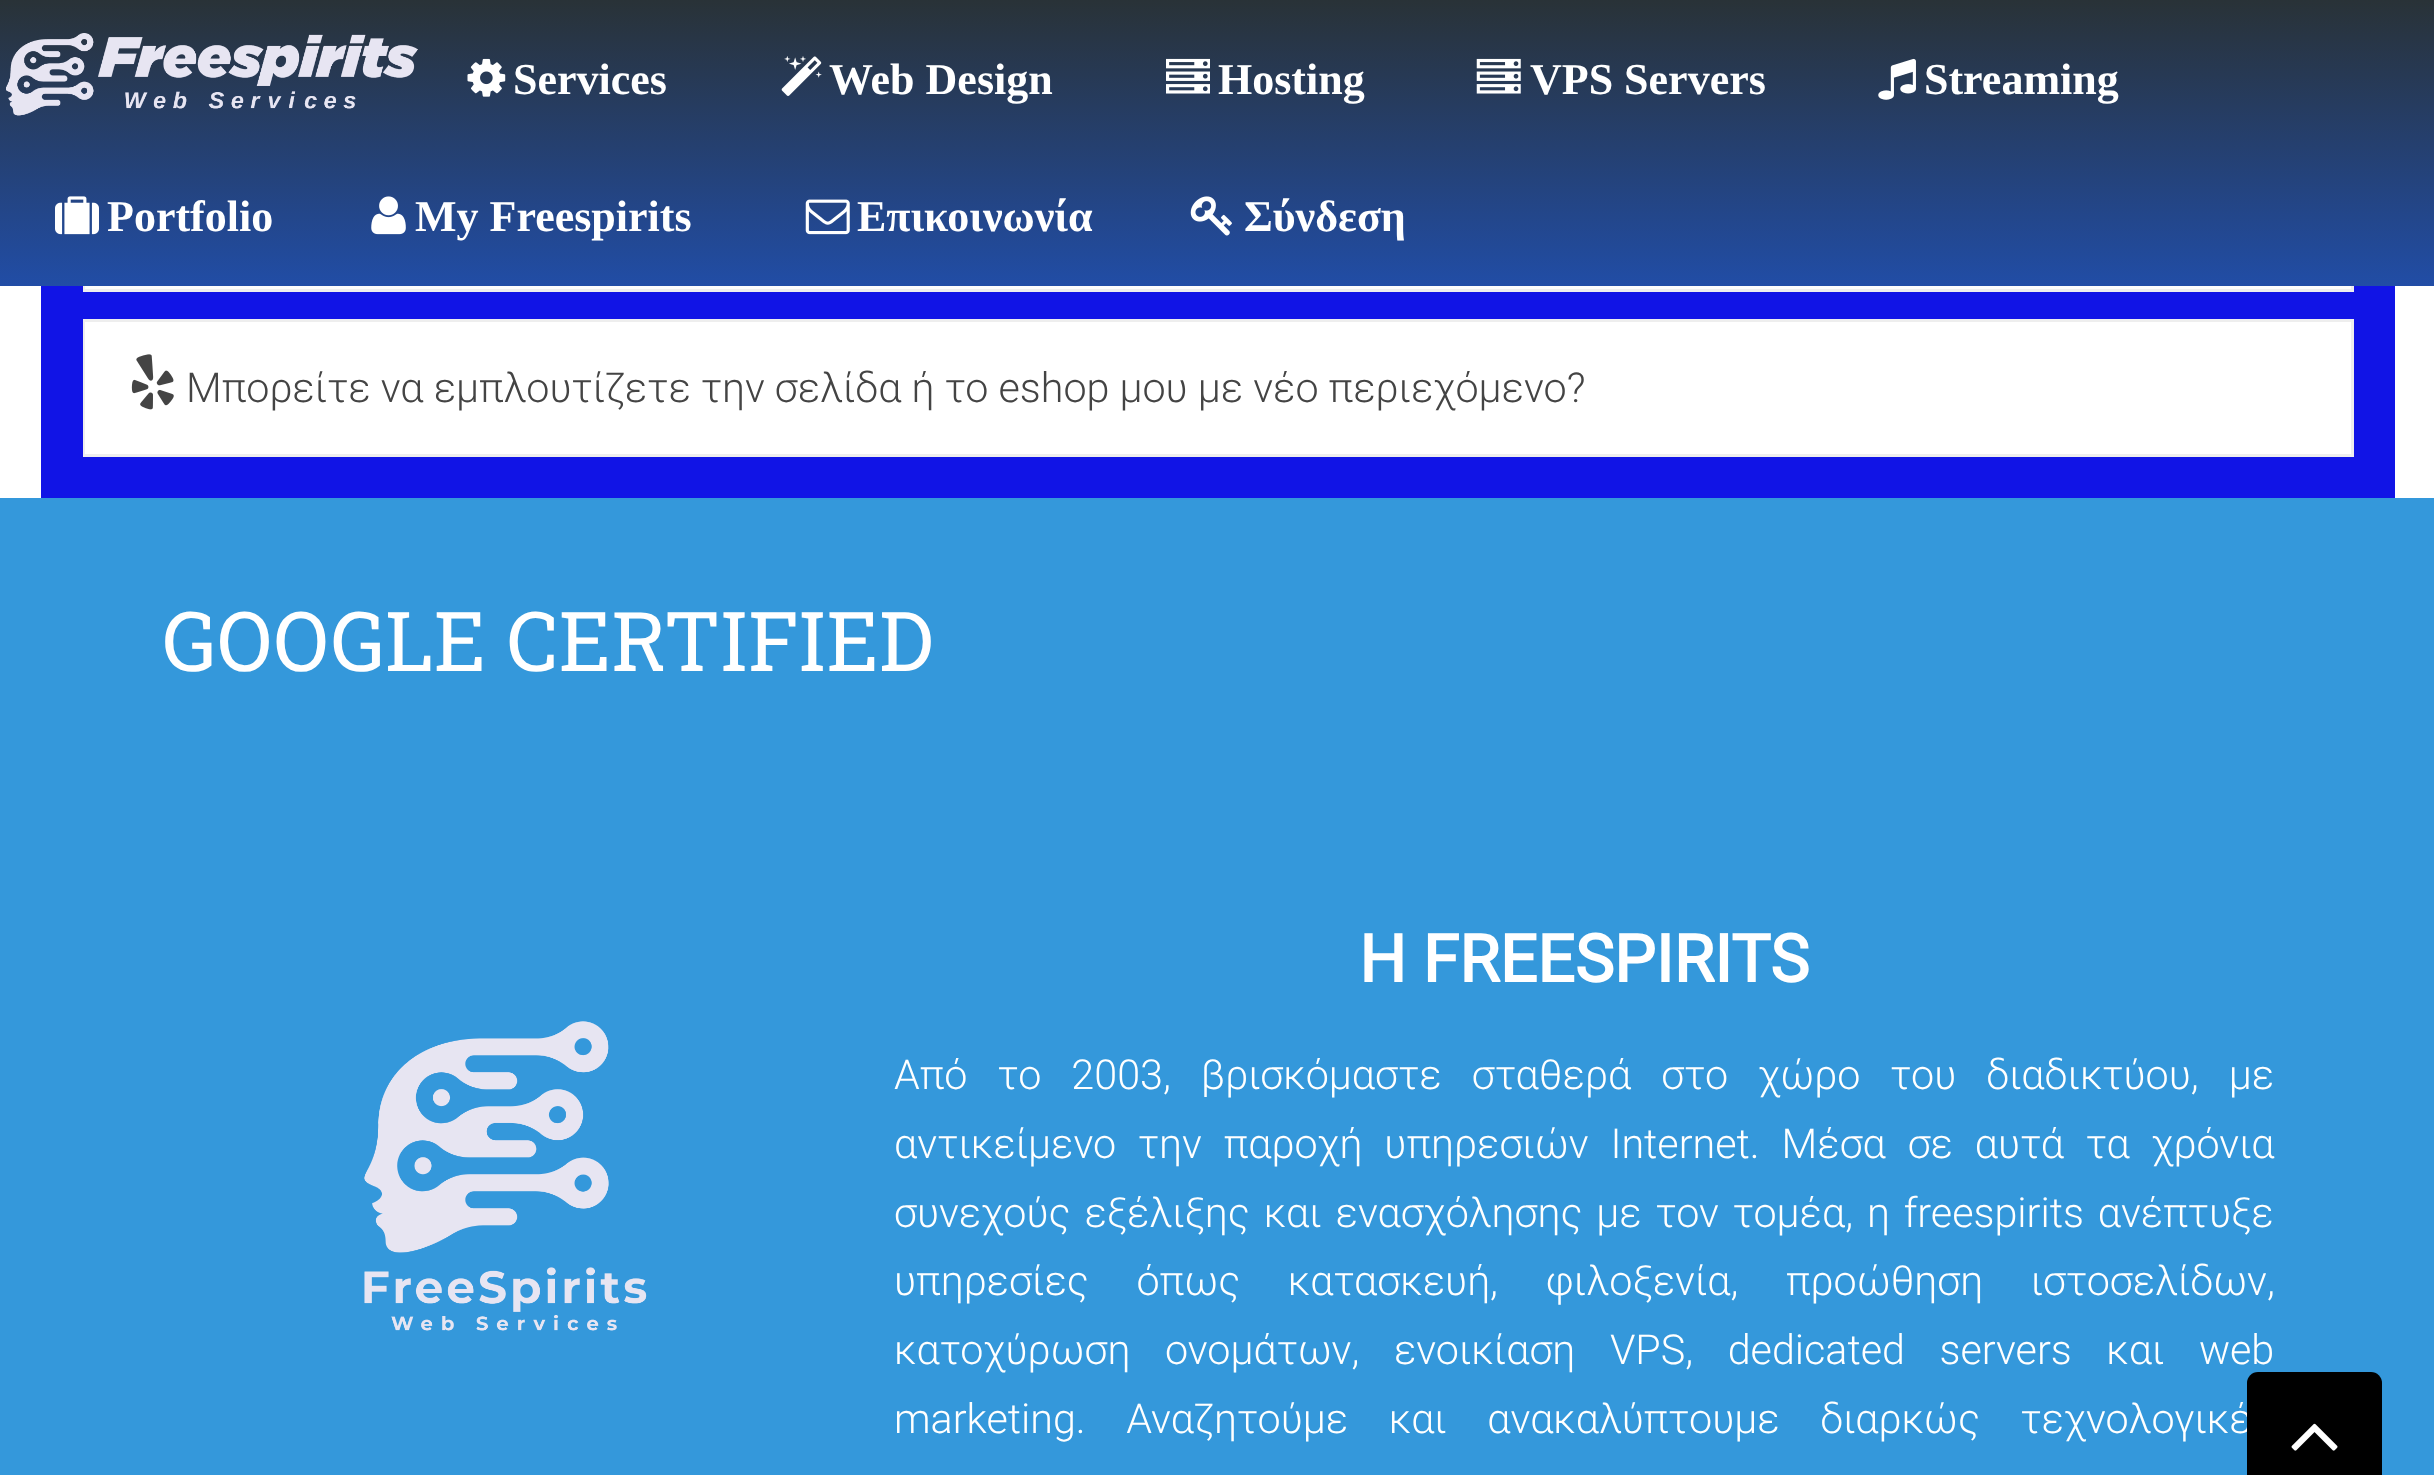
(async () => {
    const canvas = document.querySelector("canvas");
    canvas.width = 2434;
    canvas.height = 1475;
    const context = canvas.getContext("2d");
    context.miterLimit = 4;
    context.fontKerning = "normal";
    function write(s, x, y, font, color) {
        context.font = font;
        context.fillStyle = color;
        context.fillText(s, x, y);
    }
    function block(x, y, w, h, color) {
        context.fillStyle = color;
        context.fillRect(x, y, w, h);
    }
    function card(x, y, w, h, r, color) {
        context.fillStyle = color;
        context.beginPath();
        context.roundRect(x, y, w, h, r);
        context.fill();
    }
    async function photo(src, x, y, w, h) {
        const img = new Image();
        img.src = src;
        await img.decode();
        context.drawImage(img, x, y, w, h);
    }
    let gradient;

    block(0, 0, 2434, 1475, "rgb(255, 255, 255)");
    block(41, 286, 2354, 212, "rgb(17, 20, 230)");
    context.strokeStyle = "rgb(238, 238, 238)";
    context.lineWidth = 3;
    context.strokeRect(84.5, -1.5, 2268, 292);
    gradient = context.createLinearGradient(1218, 0, 1218, 286);
    gradient.addColorStop(0, "rgb(41, 50, 55)");
    gradient.addColorStop(1, "rgb(33, 77, 166)");
    context.fillStyle = gradient;
    context.fillRect(0, 0, 2434, 286);
    await photo("media/1.png", 6, 33, 412, 83);
    await photo("media/2.png", 467, 58, 39, 39);
    write("Services", 513, 94, "bold 44px Liberation Serif", "rgb(255, 255, 255)");
    await photo("media/3.png", 781, 56, 41, 40);
    write("Web Design", 829, 94, "bold 44px Liberation Serif", "rgb(255, 255, 255)");
    await photo("media/4.png", 1166, 58, 44, 36);
    write("Hosting", 1218, 94, "bold 44px Liberation Serif", "rgb(255, 255, 255)");
    await photo("media/5.png", 1476, 58, 45, 36);
    write("VPS Servers", 1530, 94, "bold 44px Liberation Serif", "rgb(255, 255, 255)");
    await photo("media/6.png", 1878, 58, 38, 42);
    write("Streaming", 1924, 94, "bold 44px Liberation Serif", "rgb(255, 255, 255)");
    await photo("media/7.png", 55, 196, 44, 39);
    write("Portfolio", 107, 231, "bold 44px Liberation Serif", "rgb(255, 255, 255)");
    await photo("media/8.png", 371, 196, 35, 39);
    write("My Freespirits", 415, 231, "bold 44px Liberation Serif", "rgb(255, 255, 255)");
    await photo("media/9.png", 805, 199, 45, 36);
    write("Επικοινωνία", 857, 231, "bold 44px Liberation Serif", "rgb(255, 255, 255)");
    await photo("media/10.png", 1190, 196, 42, 40);
    write("Σύνδεση", 1244, 231, "bold 44px Liberation Serif", "rgb(255, 255, 255)");
    block(85, 286, 2266, 3, "rgb(252, 252, 252)");
    context.strokeRect(84.5, 320.5, 2268, 135);
    block(85, 322, 2266, 132, "rgb(255, 255, 255)");
    await photo("media/11.png", 131, 354, 43, 56);
    write("Μπορείτε να εμπλουτίζετε την σελίδα ή το eshop μου με νέο περιεχόμενο?", 186, 402, "300 41.25px Roboto", "rgb(68, 68, 68)");
    block(0, 498, 2434, 977, "rgb(52, 152, 219)");
    write("GOOGLE CERTIFIED", 162, 671, "82.5px Roboto Slab", "rgb(255, 255, 255)");
    await photo("media/12.png", 364, 1021, 283, 310);
    write("H FREESPIRITS", 1359, 982, "bold 66px Roboto", "rgb(255, 255, 255)");
    context.wordSpacing = "20px";
    write("Aπό το 2003, βρισκόμαστε σταθερά στο χώρο του διαδικτύου, με", 894, 1089, "300 41.25px Roboto", "rgb(255, 255, 255)");
    context.wordSpacing = "11.75px";
    write("αντικείμενο την παροχή υπηρεσιών Internet. Μέσα σε αυτά τα χρόνια", 894, 1158, "300 41.25px Roboto", "rgb(255, 255, 255)");
    context.wordSpacing = "3.75px";
    write("συνεχούς εξέλιξης και ενασχόλησης με τον τομέα, η freespirits ανέπτυξε", 894, 1227, "300 41.25px Roboto", "rgb(255, 255, 255)");
    context.wordSpacing = "37.5px";
    write("υπηρεσίες όπως κατασκευή, φιλοξενία, προώθηση ιστοσελίδων,", 894, 1295, "300 41.25px Roboto", "rgb(255, 255, 255)");
    context.wordSpacing = "24.5px";
    write("κατοχύρωση ονομάτων, ενοικίαση VPS, dedicated servers και web", 894, 1364, "300 41.25px Roboto", "rgb(255, 255, 255)");
    context.wordSpacing = "30.5px";
    write("marketing. Αναζητούμε και ανακαλύπτουμε διαρκώς τεχνολογικέ", 894, 1433, "300 41.25px Roboto", "rgb(255, 255, 255)");
    card(2247, 1372, 135, 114, 11, "rgb(0, 0, 0)");
    await photo("media/13.png", 2291, 1423, 47, 28);
})();
